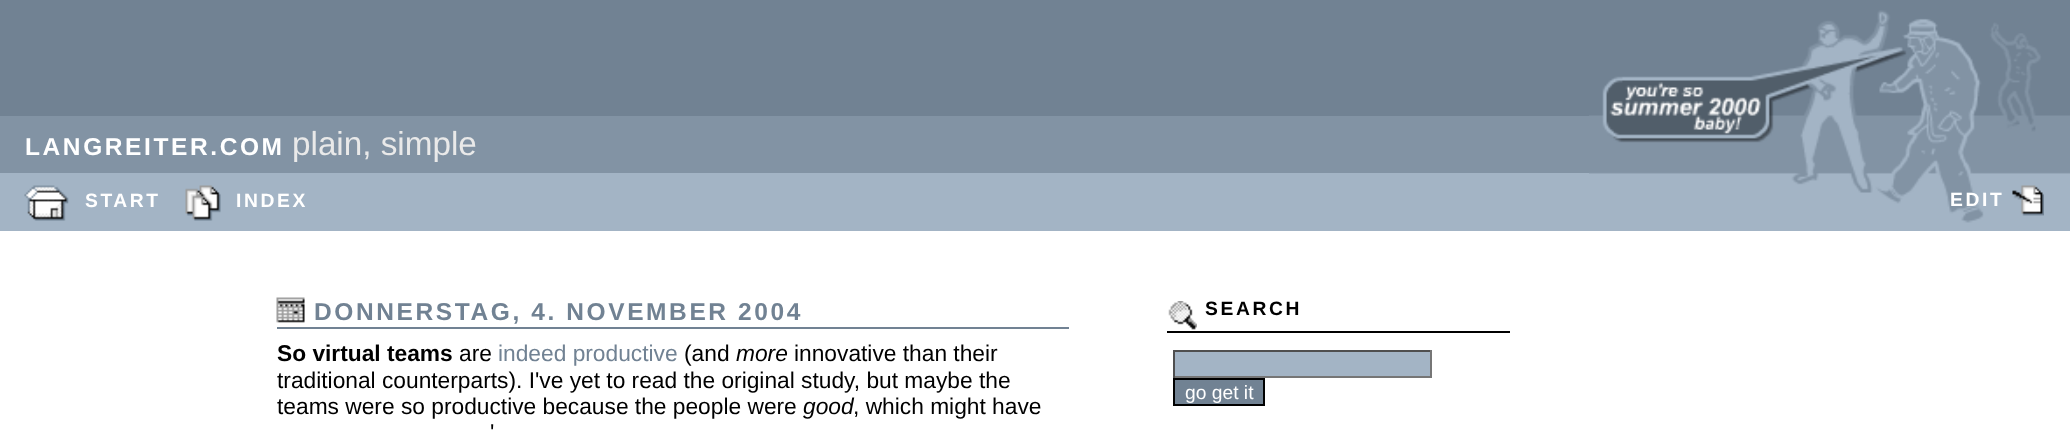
(async () => {
    const canvas = document.querySelector("canvas");
    canvas.width = 2070;
    canvas.height = 430;
    const context = canvas.getContext("2d");
    context.miterLimit = 4;
    context.fontKerning = "normal";
    function write(s, x, y, font, color) {
        context.font = font;
        context.fillStyle = color;
        context.fillText(s, x, y);
    }
    function block(x, y, w, h, color) {
        context.fillStyle = color;
        context.fillRect(x, y, w, h);
    }
    async function photo(src, x, y, w, h) {
        const img = new Image();
        img.src = src;
        await img.decode();
        context.drawImage(img, x, y, w, h);
    }

    block(0, 0, 2070, 430, "rgb(255, 255, 255)");
    block(0, 0, 2070, 116, "rgb(113, 130, 147)");
    block(0, 116, 1589, 57, "rgb(130, 147, 164)");
    context.letterSpacing = "2.6px";
    write("LANGREITER.COM", 25, 155, "bold 24.5px Liberation Sans", "rgb(255, 255, 255)");
    context.letterSpacing = "0px";
    write("plain, simple", 292, 155, "33.25px Liberation Sans", "rgb(233, 233, 233)");
    block(0, 173, 2070, 58, "rgb(163, 180, 197)");
    await photo("media/1.png", 24, 185, 45, 36);
    context.letterSpacing = "2.6px";
    write("START", 85, 207, "bold 19.25px Liberation Sans", "rgb(255, 255, 255)");
    await photo("media/2.png", 185, 185, 36, 36);
    write("INDEX", 236, 207, "bold 19.25px Liberation Sans", "rgb(255, 255, 255)");
    await photo("media/3.png", 1589, 10, 481, 213);
    write("EDIT", 1950, 206, "bold 19.25px Liberation Sans", "rgb(255, 255, 255)");
    await photo("media/4.png", 2012, 185, 32, 31);
    await photo("media/5.png", 276, 297, 29, 26);
    write("DONNERSTAG, 4. NOVEMBER 2004", 314, 320, "bold 24.5px Liberation Sans", "rgb(113, 130, 147)");
    block(277, 327, 792, 2, "rgb(113, 130, 147)");
    context.letterSpacing = "0px";
    write("So virtual teams", 277, 361, "bold 22.75px Liberation Sans", "rgb(0, 0, 0)");
    write("are", 459, 361, "22.75px Liberation Sans", "rgb(0, 0, 0)");
    write("indeed productive", 498, 361, "22.75px Liberation Sans", "rgb(113, 130, 147)");
    write("(and", 684, 361, "22.75px Liberation Sans", "rgb(0, 0, 0)");
    write("more", 736, 361, "italic 22.75px Liberation Sans", "rgb(0, 0, 0)");
    write("innovative than their", 794, 361, "22.75px Liberation Sans", "rgb(0, 0, 0)");
    write("traditional counterparts). I've yet to read the original study, but maybe the", 277, 388, "22.75px Liberation Sans", "rgb(0, 0, 0)");
    write("teams were so productive because the people were", 277, 414, "22.75px Liberation Sans", "rgb(0, 0, 0)");
    write("good", 803, 414, "italic 22.75px Liberation Sans", "rgb(0, 0, 0)");
    write(", which might have", 853, 414, "22.75px Liberation Sans", "rgb(0, 0, 0)");
    write("'", 490, 440, "22.75px Liberation Sans", "rgb(0, 0, 0)");
    await photo("media/6.png", 1168, 301, 29, 29);
    context.letterSpacing = "2.6px";
    write("SEARCH", 1205, 315, "bold 19.25px Liberation Sans", "rgb(0, 0, 0)");
    block(1167, 331, 343, 2, "rgb(0, 0, 0)");
    block(1175, 352, 255, 24, "rgb(163, 180, 197)");
    block(1173, 350, 259, 2, "rgb(79, 79, 79)");
    block(1430, 350, 2, 28, "rgb(118, 118, 118)");
    block(1173, 376, 259, 2, "rgb(118, 118, 118)");
    block(1173, 350, 2, 28, "rgb(79, 79, 79)");
    context.fillStyle = "rgb(113, 130, 147)";
    context.beginPath();
    context.rect(1174, 379, 90, 26);
    context.fill();
    context.strokeStyle = "rgb(0, 0, 0)";
    context.lineWidth = 2;
    context.stroke();
    context.letterSpacing = "0px";
    write("go get it", 1185, 399, "19.25px Liberation Sans", "rgb(255, 255, 255)");
})();
